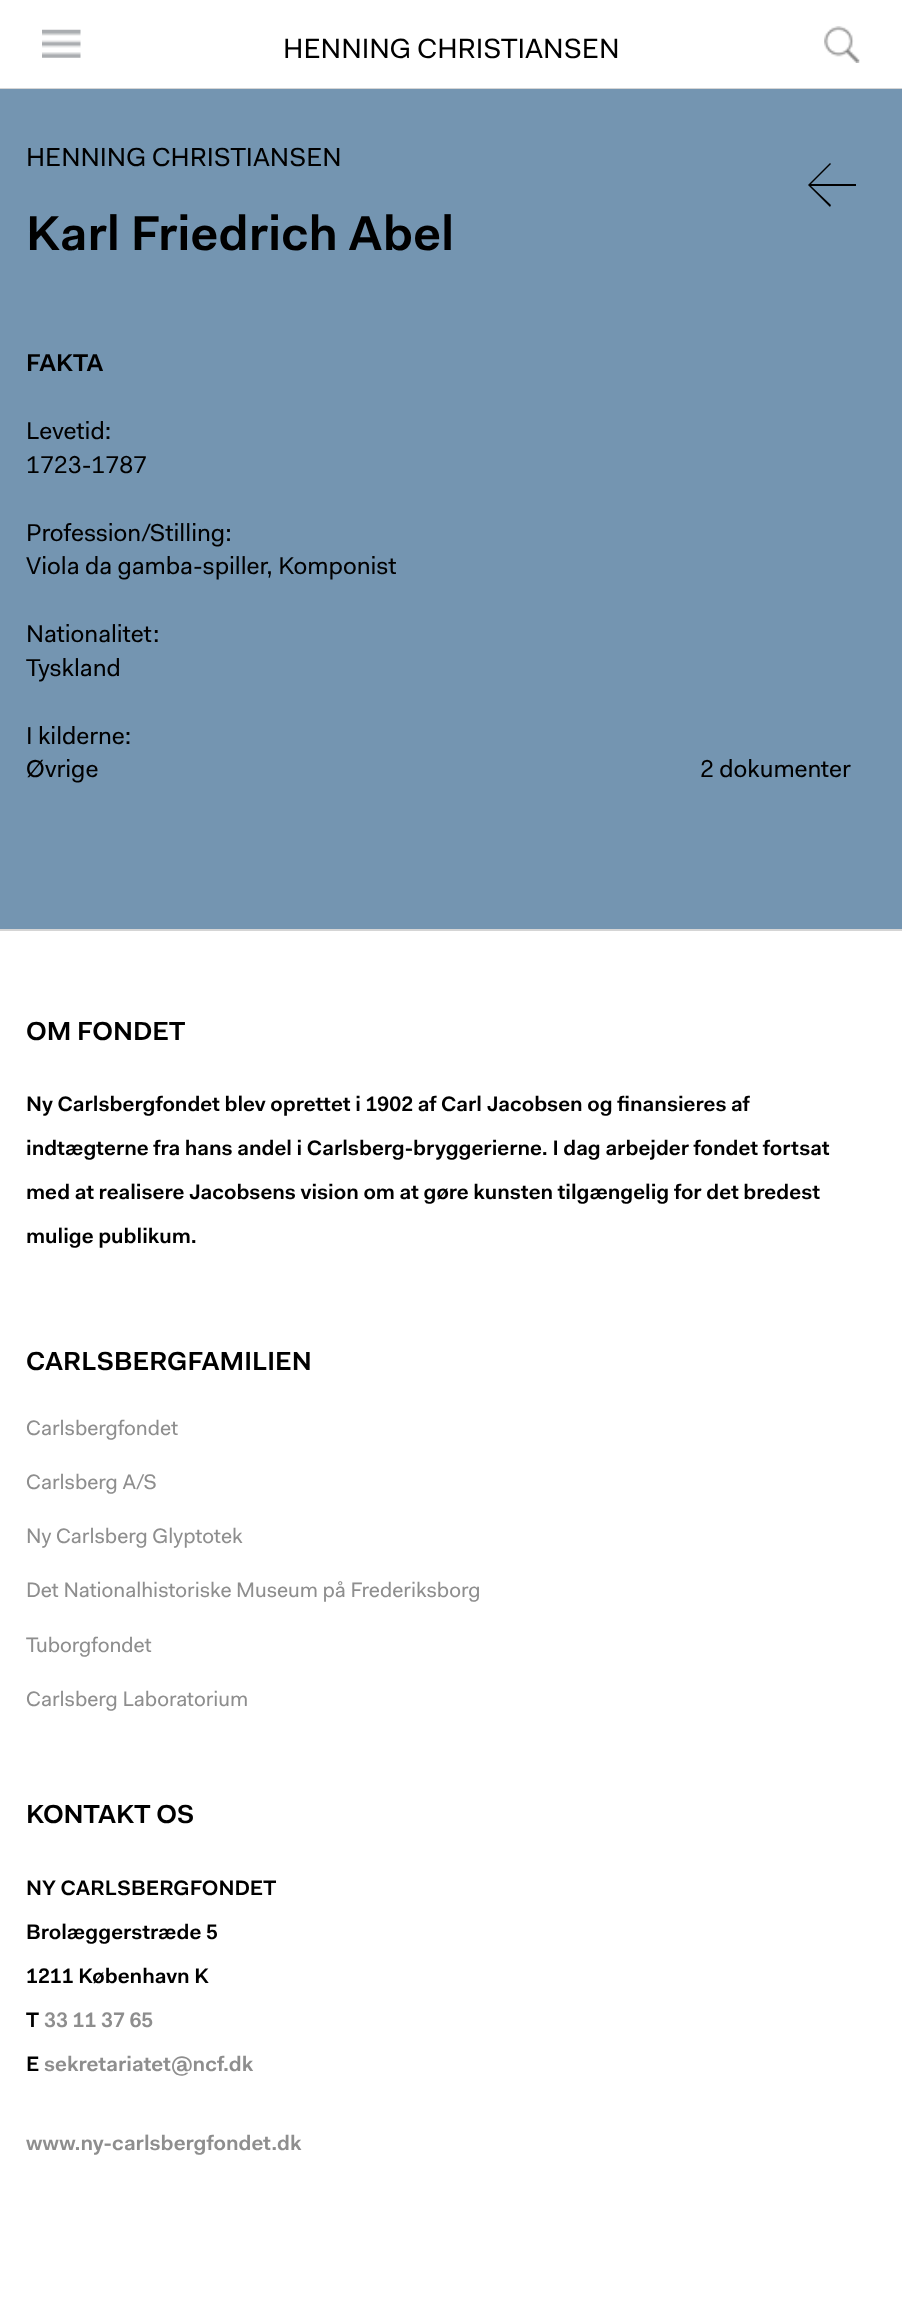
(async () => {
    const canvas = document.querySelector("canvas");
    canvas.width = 902;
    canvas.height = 2313;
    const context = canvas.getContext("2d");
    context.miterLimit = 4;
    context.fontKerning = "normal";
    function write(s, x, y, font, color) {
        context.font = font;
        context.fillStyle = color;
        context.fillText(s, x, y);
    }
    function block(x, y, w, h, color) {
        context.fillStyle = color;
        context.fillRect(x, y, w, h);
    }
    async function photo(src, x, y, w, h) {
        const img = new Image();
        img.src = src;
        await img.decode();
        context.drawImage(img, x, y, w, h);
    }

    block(0, 0, 902, 2313, "rgb(255, 255, 255)");
    block(0, 88, 902, 1, "rgb(213, 213, 213)");
    await photo("media/1.png", 42, 29, 39, 29);
    write("HENNING CHRISTIANSEN", 283, 58, "28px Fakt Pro", "rgb(0, 0, 0)");
    await photo("media/2.png", 824, 26, 36, 37);
    block(0, 89, 902, 840, "rgb(116, 149, 177)");
    write("HENNING CHRISTIANSEN", 26, 166, "26.25px Fakt Pro", "rgb(0, 0, 0)");
    write("Karl Friedrich Abel", 26, 250, "600 49px Fakt Pro", "rgb(0, 0, 0)");
    context.beginPath();
    context.moveTo(811, 186);
    context.lineTo(831, 205);
    context.lineTo(830, 207);
    context.lineTo(808, 185);
    context.lineTo(830, 163);
    context.lineTo(831, 164);
    context.lineTo(811, 184);
    context.lineTo(856, 184);
    context.lineTo(856, 186);
    context.closePath();
    context.fill();
    write("FAKTA", 26, 371, "600 24.5px Fakt Pro", "rgb(0, 0, 0)");
    write("Levetid:", 26, 439, "24.5px Fakt Pro", "rgb(0, 0, 0)");
    write("1723-1787", 26, 473, "24.5px Fakt Pro", "rgb(0, 0, 0)");
    write("Profession/Stilling:", 26, 541, "24.5px Fakt Pro", "rgb(0, 0, 0)");
    write("Viola da gamba-spiller, Komponist", 26, 574, "24.5px Fakt Pro", "rgb(0, 0, 0)");
    write("Nationalitet", 26, 642, "24.5px Fakt Pro", "rgb(0, 0, 0)");
    write(":", 153, 642, "24.5px Fakt Pro", "rgb(0, 0, 0)");
    write("Tyskland", 26, 676, "24.5px Fakt Pro", "rgb(0, 0, 0)");
    write("I kilderne:", 26, 744, "24.5px Fakt Pro", "rgb(0, 0, 0)");
    write("Øvrige", 26, 777, "24.5px Fakt Pro", "rgb(0, 0, 0)");
    write("2 dokumenter", 700, 777, "24.5px Fakt Pro", "rgb(0, 0, 0)");
    block(0, 929, 902, 2, "rgb(213, 213, 213)");
    write("OM FONDET", 26, 1040, "600 26.25px Fakt Pro", "rgb(0, 0, 0)");
    write("Ny Carlsbergfondet blev oprettet i 1902 af Carl Jacobsen og finansieres af", 26, 1111, "600 21px Fakt Pro", "rgb(0, 0, 0)");
    write("indtægterne fra hans andel i Carlsberg-bryggerierne. I dag arbejder fondet fortsat", 26, 1155, "600 21px Fakt Pro", "rgb(0, 0, 0)");
    write("med at realisere Jacobsens vision om at gøre kunsten tilgængelig for det bredest", 26, 1199, "600 21px Fakt Pro", "rgb(0, 0, 0)");
    write("mulige publikum.", 26, 1243, "600 21px Fakt Pro", "rgb(0, 0, 0)");
    write("CARLSBERGFAMILIEN", 26, 1370, "600 26.25px Fakt Pro", "rgb(0, 0, 0)");
    write("Carlsbergfondet", 26, 1435, "21px Fakt Pro", "rgb(142, 142, 142)");
    write("Carlsberg A/S", 26, 1489, "21px Fakt Pro", "rgb(142, 142, 142)");
    write("Ny Carlsberg Glyptotek", 26, 1543, "21px Fakt Pro", "rgb(142, 142, 142)");
    write("Det Nationalhistoriske Museum på Frederiksborg", 26, 1597, "21px Fakt Pro", "rgb(142, 142, 142)");
    write("Tuborgfondet", 26, 1652, "21px Fakt Pro", "rgb(142, 142, 142)");
    write("Carlsberg Laboratorium", 26, 1706, "21px Fakt Pro", "rgb(142, 142, 142)");
    write("KONTAKT OS", 26, 1823, "600 26.25px Fakt Pro", "rgb(0, 0, 0)");
    write("NY CARLSBERGFONDET", 26, 1895, "600 21px Fakt Pro", "rgb(0, 0, 0)");
    write("Brolæggerstræde 5", 26, 1939, "600 21px Fakt Pro", "rgb(0, 0, 0)");
    write("1211 København K", 26, 1983, "600 21px Fakt Pro", "rgb(0, 0, 0)");
    write("T", 26, 2027, "600 21px Fakt Pro", "rgb(0, 0, 0)");
    write("33 11 37 65", 44, 2027, "600 21px Fakt Pro", "rgb(142, 142, 142)");
    write("E", 26, 2071, "600 21px Fakt Pro", "rgb(0, 0, 0)");
    write("sekretariatet@ncf.dk", 44, 2071, "600 21px Fakt Pro", "rgb(142, 142, 142)");
    write("www.ny-carlsbergfondet.dk", 26, 2150, "600 21px Fakt Pro", "rgb(142, 142, 142)");
})();
